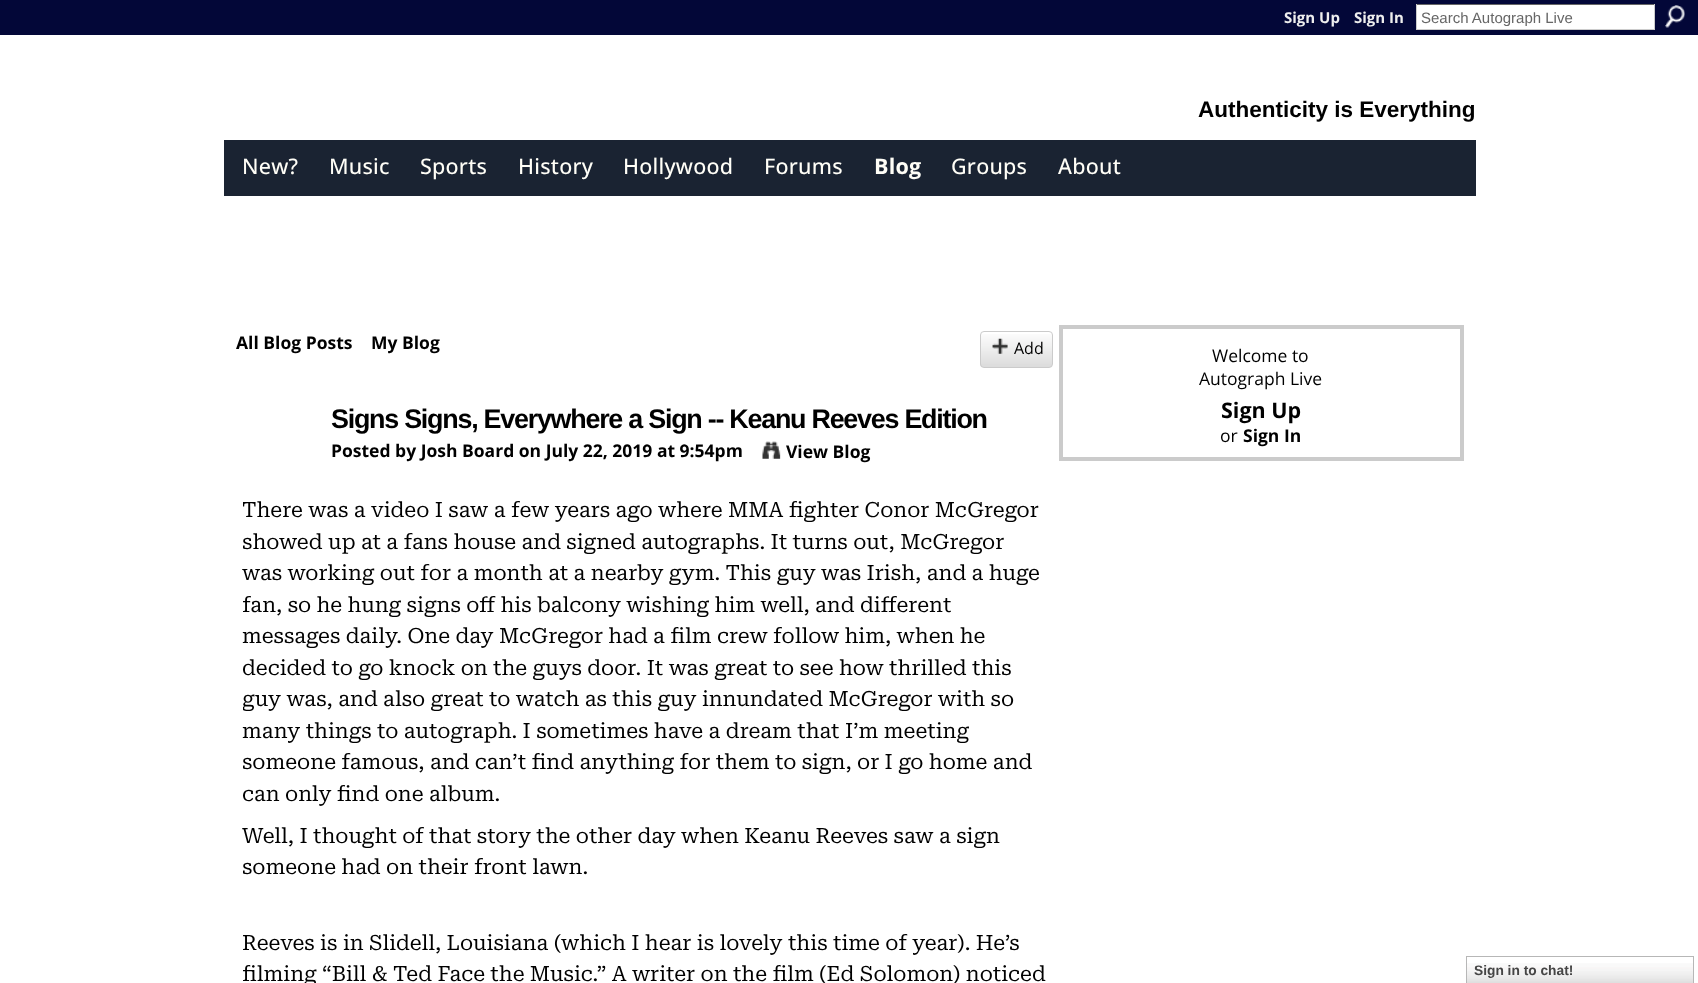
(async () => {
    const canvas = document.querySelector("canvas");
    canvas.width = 1698;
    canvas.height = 983;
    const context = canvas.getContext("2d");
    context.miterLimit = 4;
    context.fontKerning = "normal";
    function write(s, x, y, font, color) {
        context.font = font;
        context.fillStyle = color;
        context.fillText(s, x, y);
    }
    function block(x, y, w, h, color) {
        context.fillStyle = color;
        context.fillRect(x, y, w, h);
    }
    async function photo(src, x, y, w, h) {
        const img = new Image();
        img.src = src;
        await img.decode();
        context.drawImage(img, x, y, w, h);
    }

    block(0, 0, 1698, 983, "rgb(255, 255, 255)");
    block(0, 0, 1698, 35, "rgb(3, 7, 56)");
    write("Sign Up", 1284, 23, "bold 15px Open Sans", "rgb(238, 238, 238)");
    write("Sign In", 1354, 23, "bold 15px Open Sans", "rgb(238, 238, 238)");
    block(1417, 5, 237, 24, "rgb(255, 255, 255)");
    block(1416, 4, 239, 1, "rgb(102, 102, 102)");
    block(1654, 4, 1, 26, "rgb(204, 204, 204)");
    block(1416, 29, 239, 1, "rgb(204, 204, 204)");
    block(1416, 4, 1, 26, "rgb(204, 204, 204)");
    write("Search Autograph Live", 1421, 23, "15px Liberation Sans", "rgb(102, 102, 102)");
    await photo("media/1.png", 1665, 5, 20, 23);
    write("Authenticity is Everything", 1198, 117, "bold 22.5px Liberation Sans", "rgb(0, 0, 0)");
    block(224, 140, 1252, 56, "rgb(26, 35, 50)");
    context.letterSpacing = "0.25px";
    write("New?", 242, 174, "500 21.5px Open Sans", "rgb(255, 254, 247)");
    write("Music", 329, 174, "500 21.5px Open Sans", "rgb(255, 254, 247)");
    write("Sports", 420, 174, "500 21.5px Open Sans", "rgb(255, 254, 247)");
    write("History", 518, 174, "500 21.5px Open Sans", "rgb(255, 254, 247)");
    write("Hollywood", 623, 174, "500 21.5px Open Sans", "rgb(255, 254, 247)");
    write("Forums", 764, 174, "500 21.5px Open Sans", "rgb(255, 254, 247)");
    write("Blog", 874, 174, "bold 21.5px Open Sans", "rgb(255, 254, 247)");
    write("Groups", 951, 174, "500 21.5px Open Sans", "rgb(255, 254, 247)");
    write("About", 1058, 174, "500 21.5px Open Sans", "rgb(255, 254, 247)");
    context.letterSpacing = "0px";
    write("All Blog Posts", 236, 349, "bold 17.5px Open Sans", "rgb(0, 0, 0)");
    write("My Blog", 371, 349, "bold 17.5px Open Sans", "rgb(0, 0, 0)");
    await photo("media/2.png", 980, 334, 73, 34);
    context.beginPath();
    context.roundRect(980.5, 331.5, 72, 36, 3.5);
    context.strokeStyle = "rgb(203, 203, 203)";
    context.stroke();
    await photo("media/3.png", 992, 338, 16, 16);
    write("Add", 1014, 354, "16px Open Sans", "rgb(0, 0, 0)");
    context.letterSpacing = "-1.25px";
    write("Signs Signs, Everywhere a Sign -- Keanu Reeves Edition", 331, 428, "bold 26.9px Liberation Sans", "rgb(0, 0, 0)");
    context.letterSpacing = "0px";
    write("Posted by Josh Board on July 22, 2019 at 9:54pm", 331, 457, "bold 17.5px Open Sans", "rgb(0, 0, 0)");
    await photo("media/4.png", 762, 441, 19, 18);
    write("View Blog", 786, 458, "bold 17.5px Open Sans", "rgb(0, 0, 0)");
    context.save();
    context.beginPath();
    context.rect(243, 489, 803, 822);
    context.clip();
    write("There was a video I saw a few years ago where MMA fighter Conor McGregor", 242, 517, "21px Roboto Serif", "rgb(0, 0, 0)");
    write("showed up at a fans house and signed autographs. It turns out, McGregor", 242, 549, "21px Roboto Serif", "rgb(0, 0, 0)");
    context.restore();
    write("was working out for a month at a nearby gym. This guy was Irish, and a huge", 242, 580, "21px Roboto Serif", "rgb(0, 0, 0)");
    context.save();
    context.beginPath();
    context.rect(243, 489, 803, 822);
    context.clip();
    write("fan, so he hung signs off his balcony wishing him well, and different", 242, 612, "21px Roboto Serif", "rgb(0, 0, 0)");
    context.restore();
    write("messages daily. One day McGregor had a film crew follow him, when he", 242, 643, "21px Roboto Serif", "rgb(0, 0, 0)");
    write("decided to go knock on the guys door. It was great to see how thrilled this", 242, 675, "21px Roboto Serif", "rgb(0, 0, 0)");
    context.save();
    context.beginPath();
    context.rect(243, 489, 803, 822);
    context.clip();
    write("guy was, and also great to watch as this guy innundated McGregor with so", 242, 706, "21px Roboto Serif", "rgb(0, 0, 0)");
    context.restore();
    write("many things to autograph. I sometimes have a dream that I’m meeting", 242, 738, "21px Roboto Serif", "rgb(0, 0, 0)");
    context.save();
    context.beginPath();
    context.rect(243, 489, 803, 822);
    context.clip();
    write("someone famous, and can’t find anything for them to sign, or I go home and", 242, 769, "21px Roboto Serif", "rgb(0, 0, 0)");
    context.restore();
    write("can only find one album.", 242, 801, "21px Roboto Serif", "rgb(0, 0, 0)");
    write("Well, I thought of that story the other day when Keanu Reeves saw a sign", 242, 843, "21px Roboto Serif", "rgb(0, 0, 0)");
    context.save();
    context.beginPath();
    context.rect(243, 489, 803, 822);
    context.clip();
    write("someone had on their front lawn.", 242, 874, "21px Roboto Serif", "rgb(0, 0, 0)");
    context.restore();
    write("Reeves is in Slidell, Louisiana (which I hear is lovely this time of year). He’s", 242, 950, "21px Roboto Serif", "rgb(0, 0, 0)");
    context.save();
    context.beginPath();
    context.rect(243, 489, 803, 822);
    context.clip();
    write("filming “Bill & Ted Face the Music.” A writer on the film (Ed Solomon) noticed", 242, 981, "21px Roboto Serif", "rgb(0, 0, 0)");
    context.restore();
    context.lineWidth = 4;
    context.strokeRect(1061, 327, 401, 132);
    write("Welcome to", 1212, 362, "17.5px Open Sans", "rgb(0, 0, 0)");
    write("Autograph Live", 1199, 385, "17.5px Open Sans", "rgb(0, 0, 0)");
    write("Sign Up", 1221, 418, "bold 21.5px Open Sans", "rgb(0, 0, 0)");
    write("or", 1220, 442, "17.5px Open Sans", "rgb(0, 0, 0)");
    write("Sign In", 1243, 442, "bold 17.5px Open Sans", "rgb(0, 0, 0)");
    await photo("media/5.png", 1467, 963, 226, 20);
    context.strokeStyle = "rgb(183, 183, 183)";
    context.lineWidth = 1;
    context.strokeRect(1466.5, 956.5, 227, 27);
    write("Sign in to chat!", 1474, 975, "bold 13.75px Liberation Sans", "rgb(69, 69, 69)");
})();
